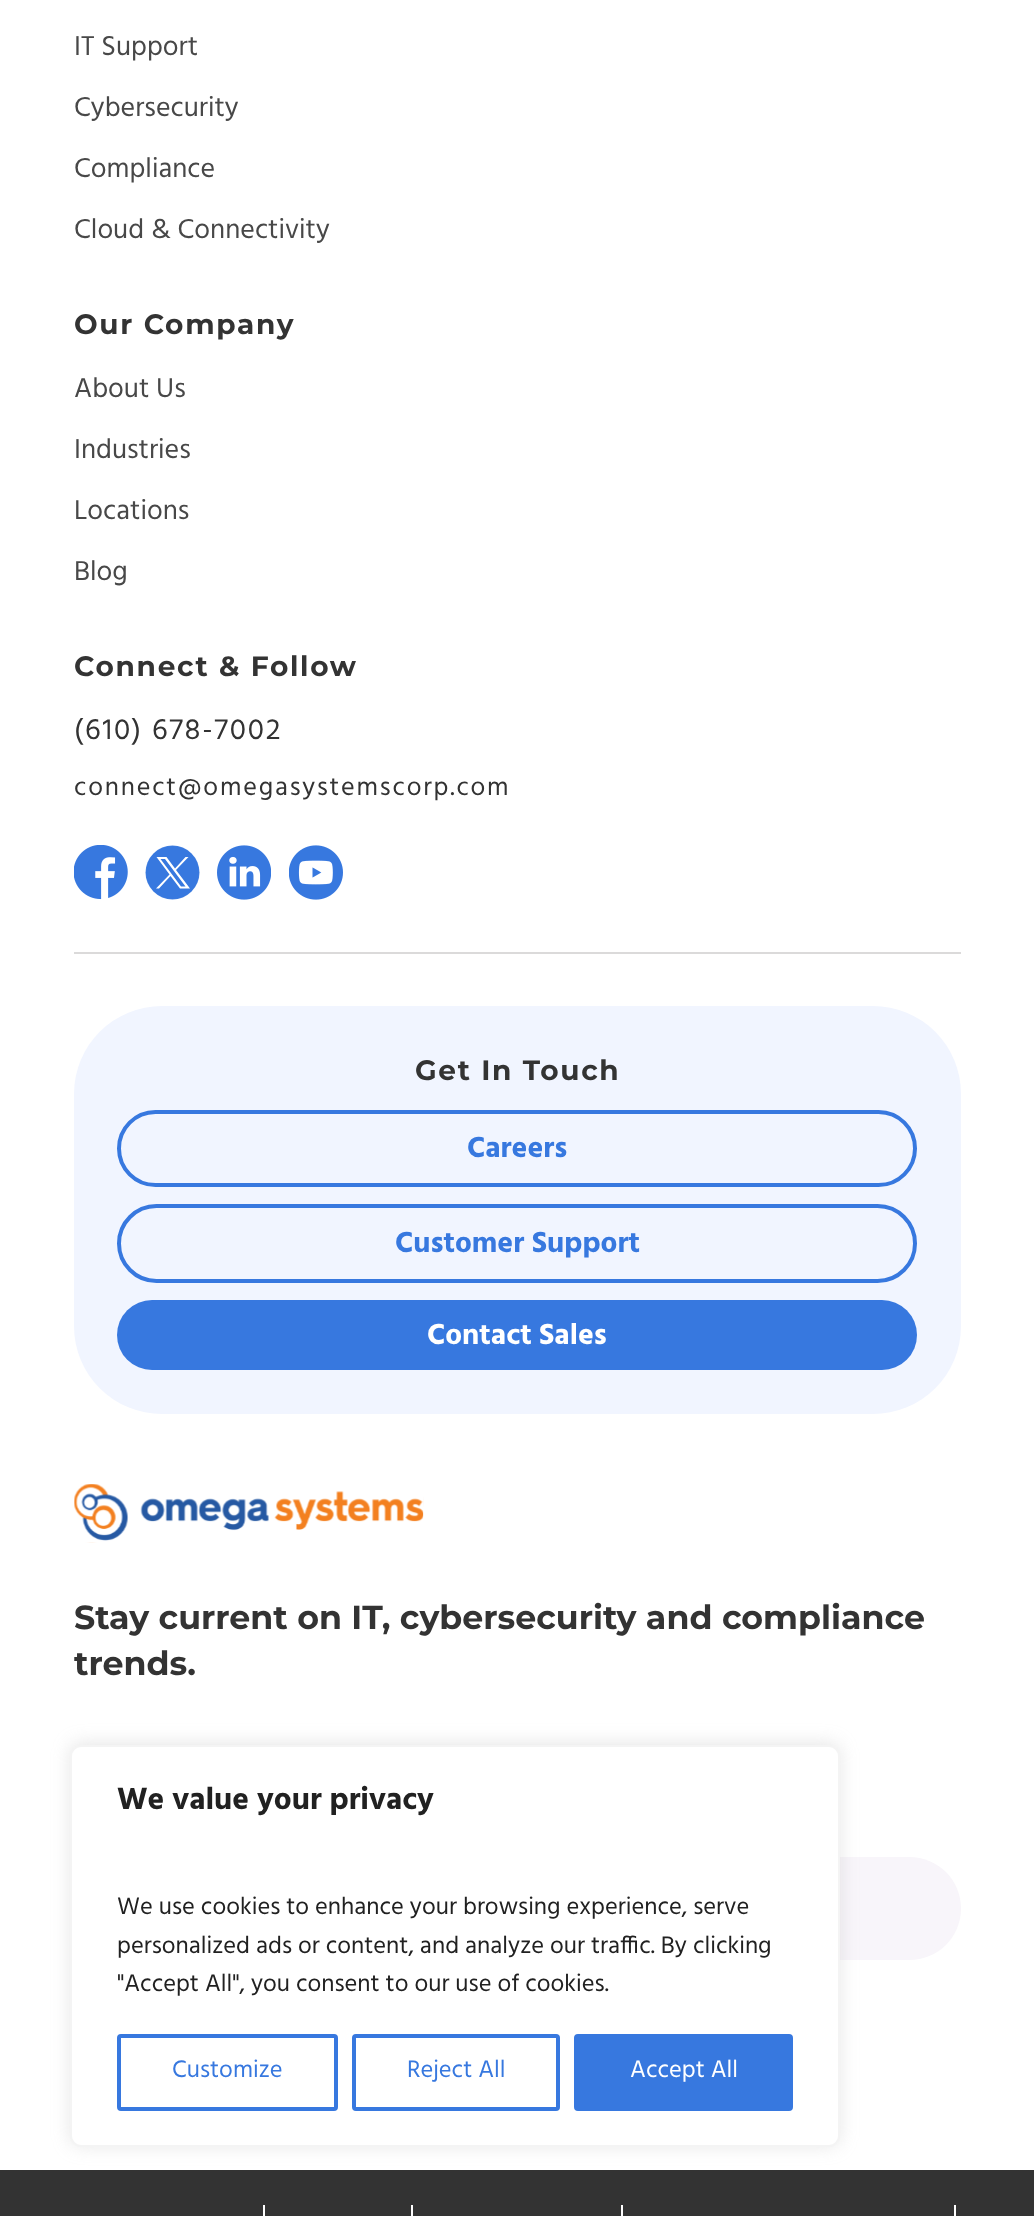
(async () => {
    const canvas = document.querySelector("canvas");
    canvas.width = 1034;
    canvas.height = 2216;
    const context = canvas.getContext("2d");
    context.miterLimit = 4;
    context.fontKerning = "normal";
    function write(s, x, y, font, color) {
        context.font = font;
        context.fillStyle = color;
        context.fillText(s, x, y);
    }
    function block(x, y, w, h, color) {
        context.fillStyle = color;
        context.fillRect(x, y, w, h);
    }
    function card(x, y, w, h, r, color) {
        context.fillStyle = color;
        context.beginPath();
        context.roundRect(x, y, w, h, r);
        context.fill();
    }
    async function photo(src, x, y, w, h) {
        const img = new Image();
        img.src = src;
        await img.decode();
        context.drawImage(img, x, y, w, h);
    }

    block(0, 0, 1034, 2216, "rgb(255, 255, 255)");
    write("IT Support", 74, 55, "28px Hind", "rgb(72, 72, 72)");
    write("Cybersecurity", 74, 116, "28px Hind", "rgb(72, 72, 72)");
    write("Compliance", 74, 177, "28px Hind", "rgb(72, 72, 72)");
    write("Cloud & Connectivity", 74, 238, "28px Hind", "rgb(72, 72, 72)");
    context.letterSpacing = "1.7px";
    write("Our Company", 74, 334, "bold 28px Montserrat", "rgb(51, 51, 51)");
    context.letterSpacing = "0px";
    write("About Us", 74, 397, "28px Hind", "rgb(72, 72, 72)");
    write("Industries", 74, 458, "28px Hind", "rgb(72, 72, 72)");
    write("Locations", 74, 519, "28px Hind", "rgb(72, 72, 72)");
    write("Blog", 74, 580, "28px Hind", "rgb(72, 72, 72)");
    context.letterSpacing = "1.7px";
    write("Connect & Follow", 74, 676, "bold 28px Montserrat", "rgb(51, 51, 51)");
    context.letterSpacing = "1.8px";
    write("(610) 678-7002", 74, 739, "29.75px Hind", "rgb(51, 51, 51)");
    write("connect@omegasystemscorp.com", 74, 795, "26.25px Hind", "rgb(51, 51, 51)");
    await photo("media/1.png", 74, 845, 54, 55);
    context.fillStyle = "rgb(55, 120, 223)";
    context.beginPath();
    context.arc(172.5, 872.5, 27, 0, Math.PI * 2);
    context.fill();
    context.strokeStyle = "rgb(255, 255, 255)";
    context.lineWidth = 0.1;
    context.stroke();
    context.fillStyle = "rgb(255, 255, 255)";
    context.beginPath();
    context.moveTo(156.5, 857);
    context.lineTo(169.5, 874.5);
    context.lineTo(156, 888.5);
    context.lineTo(159, 888.5);
    context.lineTo(170.5, 876);
    context.lineTo(180, 888.5);
    context.lineTo(190, 888.5);
    context.lineTo(176, 870);
    context.lineTo(188.5, 857);
    context.lineTo(185.5, 857);
    context.lineTo(175, 868.5);
    context.lineTo(166.5, 857);
    context.closePath();
    context.moveTo(160.5, 859);
    context.lineTo(165, 859);
    context.lineTo(185.5, 886.5);
    context.lineTo(181, 886.5);
    context.closePath();
    context.fill();
    await photo("media/2.png", 217, 845, 54, 55);
    await photo("media/3.png", 289, 845, 54, 55);
    block(74, 952, 887, 2, "rgb(219, 218, 218)");
    card(74, 1006, 887, 408, 88, "rgb(241, 245, 255)");
    context.letterSpacing = "1.7px";
    write("Get In Touch", 415, 1080, "bold 28px Montserrat", "rgb(51, 51, 51)");
    context.beginPath();
    context.roundRect(119, 1112, 796, 73, 36.5);
    context.strokeStyle = "rgb(55, 120, 223)";
    context.lineWidth = 4;
    context.stroke();
    context.letterSpacing = "0px";
    write("Careers", 467, 1157, "bold 29.75px Hind", "rgb(55, 120, 223)");
    context.beginPath();
    context.roundRect(119, 1206, 796, 75, 37.5);
    context.stroke();
    write("Customer Support", 395, 1252, "bold 29.75px Hind", "rgb(55, 120, 223)");
    card(117, 1300, 800, 70, 35, "rgb(55, 120, 223)");
    write("Contact Sales", 427, 1344, "bold 29.75px Hind", "rgb(255, 255, 255)");
    await photo("media/4.png", 74, 1484, 350, 59);
    write("Stay current on IT, cybersecurity and compliance", 74, 1629, "bold 33.25px Montserrat", "rgb(51, 51, 51)");
    write("trends.", 74, 1675, "bold 33.25px Montserrat", "rgb(51, 51, 51)");
    card(74, 1857, 887, 103, 51.5, "rgb(248, 245, 250)");
    block(0, 2170, 1034, 46, "rgb(51, 51, 51)");
    block(263, 2205, 2, 11, "rgb(255, 255, 255)");
    block(411, 2205, 2, 11, "rgb(255, 255, 255)");
    block(621, 2205, 2, 11, "rgb(255, 255, 255)");
    block(954, 2205, 2, 11, "rgb(255, 255, 255)");
    context.fillStyle = "rgba(172, 171, 171, 0.3)";
    context.filter = "blur(9px)";
    context.beginPath();
    context.roundRect(70, 1743, 770, 403, 11);
    context.fill();
    context.filter = "none";
    context.fillStyle = "rgb(255, 255, 255)";
    context.beginPath();
    context.roundRect(71, 1746, 768, 400, 10);
    context.fill();
    context.strokeStyle = "rgb(244, 244, 244)";
    context.lineWidth = 2;
    context.stroke();
    write("We value your privacy", 117, 1809, "bold 31.5px Hind", "rgb(33, 33, 33)");
    write("We use cookies to enhance your browsing experience, serve", 117, 1914, "24.5px Hind", "rgb(33, 33, 33)");
    write("personalized ads or content, and analyze our traffic. By clicking", 117, 1953, "24.5px Hind", "rgb(33, 33, 33)");
    write("\"Accept All\", you consent to our use of cookies.", 117, 1991, "24.5px Hind", "rgb(33, 33, 33)");
    context.beginPath();
    context.roundRect(119, 2036, 217, 73, 2);
    context.strokeStyle = "rgb(55, 120, 223)";
    context.lineWidth = 4;
    context.stroke();
    write("Customize", 172, 2077, "24.5px Hind", "rgb(55, 120, 223)");
    context.beginPath();
    context.roundRect(354, 2036, 204, 73, 2);
    context.stroke();
    write("Reject All", 407, 2077, "24.5px Hind", "rgb(55, 120, 223)");
    context.beginPath();
    context.roundRect(576, 2036, 215, 73, 2);
    context.fill();
    context.stroke();
    write("Accept All", 630, 2077, "24.5px Hind", "rgb(255, 255, 255)");
})();
